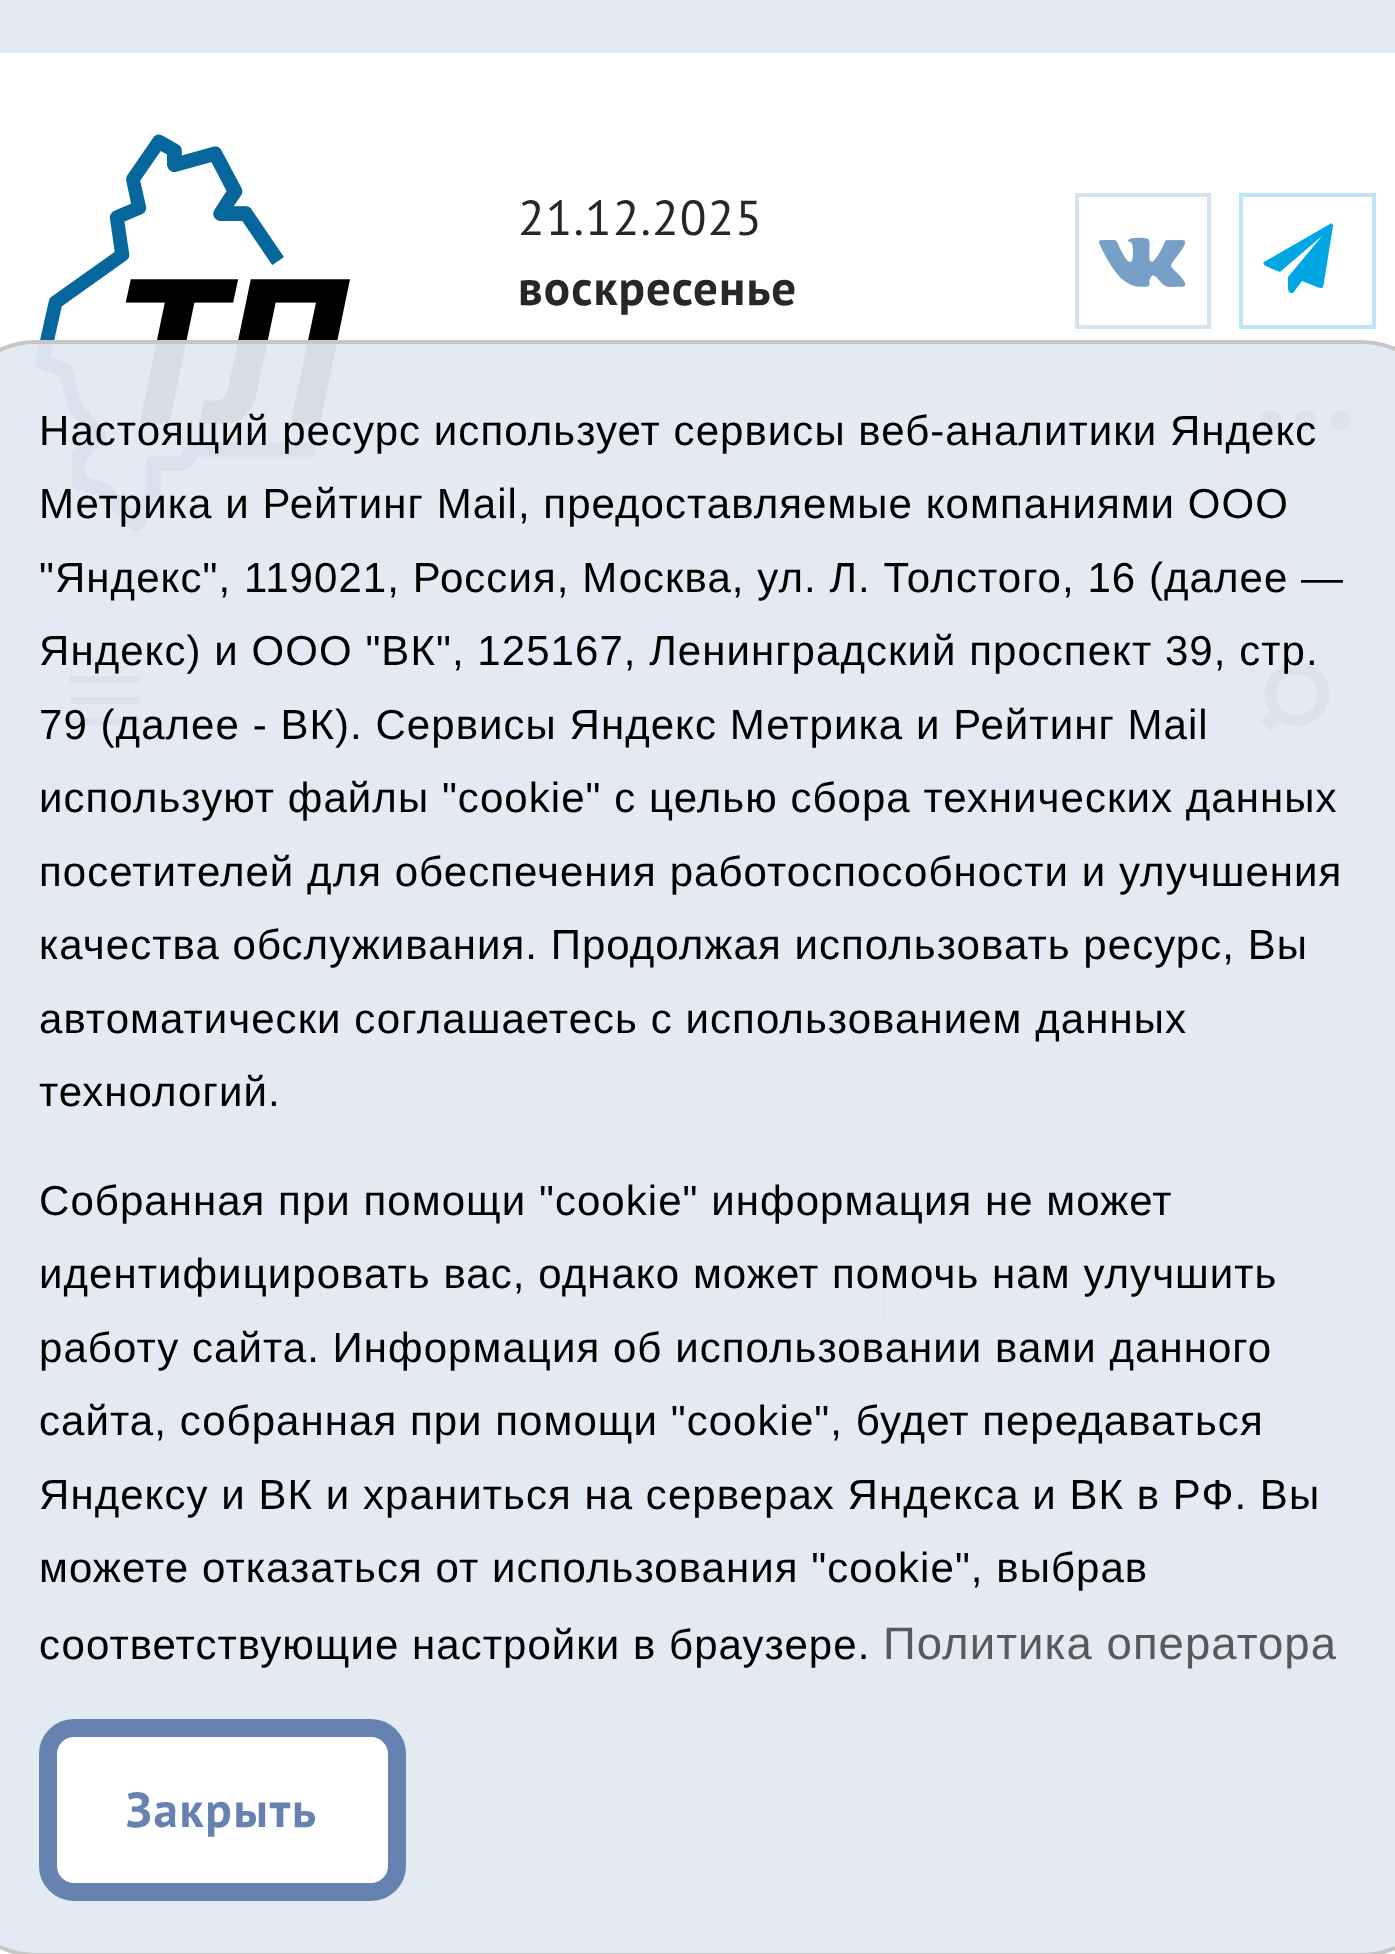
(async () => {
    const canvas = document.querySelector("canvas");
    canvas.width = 1395;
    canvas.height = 1954;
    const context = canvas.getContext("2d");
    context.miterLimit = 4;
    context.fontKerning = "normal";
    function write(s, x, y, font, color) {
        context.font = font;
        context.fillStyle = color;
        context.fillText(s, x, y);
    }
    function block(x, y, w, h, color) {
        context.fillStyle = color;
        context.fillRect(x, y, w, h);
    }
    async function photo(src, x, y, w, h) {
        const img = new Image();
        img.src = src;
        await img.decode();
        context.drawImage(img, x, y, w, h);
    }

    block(0, 0, 1395, 1954, "rgb(255, 255, 255)");
    block(0, 0, 1395, 53, "rgb(227, 233, 241)");
    await photo("media/1.png", 35, 134, 315, 398);
    context.strokeStyle = "rgb(214, 226, 238)";
    context.lineWidth = 4;
    context.strokeRect(1077, 195, 132, 132);
    await photo("media/2.png", 1099, 237, 87, 50);
    context.strokeStyle = "rgb(191, 228, 246)";
    context.strokeRect(1241, 195, 133, 132);
    context.fillStyle = "rgb(0, 167, 227)";
    context.beginPath();
    context.moveTo(1332, 224);
    context.bezierCurveTo(1333, 225, 1334, 225, 1333, 226);
    context.lineTo(1325, 276);
    context.bezierCurveTo(1323, 286, 1325, 290, 1317, 287);
    context.lineTo(1302, 281);
    context.lineTo(1293, 293);
    context.lineTo(1291, 293);
    context.bezierCurveTo(1288, 293, 1288, 288, 1288, 286);
    context.lineTo(1288, 277);
    context.lineTo(1322, 236);
    context.lineTo(1280, 272);
    context.lineTo(1270, 268);
    context.bezierCurveTo(1269, 267, 1261, 265, 1264, 262);
    context.lineTo(1330, 224);
    context.bezierCurveTo(1331, 223, 1332, 223, 1332, 224);
    context.closePath();
    context.fill();
    context.strokeStyle = "rgb(255, 187, 187)";
    context.strokeRect(1227, 352, 133, 133);
    block(1358, 354, 4, 129, "rgb(255, 255, 255)");
    context.strokeStyle = "rgb(227, 233, 241)";
    context.strokeRect(1241, 352, 133, 133);
    context.fillStyle = "rgb(88, 94, 101)";
    context.beginPath();
    context.arc(1305.5, 420.5, 10.5, 0, Math.PI * 2);
    context.fill();
    context.beginPath();
    context.arc(1270.5, 420.5, 10.5, 0, Math.PI * 2);
    context.fill();
    context.beginPath();
    context.arc(1340.5, 420.5, 10.5, 0, Math.PI * 2);
    context.fill();
    context.strokeRect(212, 632, 973, 129);
    context.strokeRect(1231, 632, 129, 129);
    context.beginPath();
    context.moveTo(1297, 663);
    context.bezierCurveTo(1271, 663, 1257, 691, 1270, 712);
    context.lineTo(1261, 721);
    context.lineTo(1270, 731);
    context.lineTo(1280, 721);
    context.bezierCurveTo(1311, 741, 1347, 699, 1320, 672);
    context.bezierCurveTo(1314, 666, 1305, 663, 1297, 663);
    context.closePath();
    context.moveTo(1297, 715);
    context.bezierCurveTo(1270, 715, 1270, 674, 1297, 674);
    context.bezierCurveTo(1324, 674, 1324, 715, 1297, 715);
    context.closePath();
    context.fill();
    context.letterSpacing = "1.05px";
    write("21.12.2025", 518, 235, "49px PT Sans", "rgb(39, 39, 39)");
    write("воскресенье", 518, 305, "bold 49px PT Sans", "rgb(39, 39, 39)");
    block(0, 606, 1395, 4, "rgb(227, 233, 241)");
    context.strokeRect(37, 632, 133, 133);
    block(70, 697, 70, 7, "rgb(85, 94, 101)");
    block(70, 676, 70, 7, "rgb(85, 94, 101)");
    block(70, 718, 70, 7, "rgb(85, 94, 101)");
    block(0, 784, 1395, 4, "rgb(227, 233, 241)");
    block(882, 1271, 4, 49, "rgb(184, 193, 206)");
    context.fillStyle = "rgba(227, 233, 241, 0.95)";
    context.beginPath();
    context.roundRect(-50, 342, 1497, 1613, 86);
    context.fill();
    context.strokeStyle = "rgb(198, 198, 198)";
    context.stroke();
    write("Настоящий ресурс использует сервисы веб-аналитики Яндекс", 39, 445, "42px Liberation Sans", "rgb(0, 0, 0)");
    write("Метрика и Рейтинг Mail, предоставляемые компаниями ООО", 39, 518, "42px Liberation Sans", "rgb(0, 0, 0)");
    write("\"Яндекс\", 119021, Россия, Москва, ул. Л. Толстого, 16 (далее —", 39, 592, "42px Liberation Sans", "rgb(0, 0, 0)");
    write("Яндекс) и ООО \"ВК\", 125167, Ленинградский проспект 39, стр.", 39, 665, "42px Liberation Sans", "rgb(0, 0, 0)");
    write("79 (далее - ВК). Сервисы Яндекс Метрика и Рейтинг Mail", 39, 739, "42px Liberation Sans", "rgb(0, 0, 0)");
    write("используют файлы \"cookie\" с целью сбора технических данных", 39, 812, "42px Liberation Sans", "rgb(0, 0, 0)");
    write("посетителей для обеспечения работоспособности и улучшения", 39, 886, "42px Liberation Sans", "rgb(0, 0, 0)");
    write("качества обслуживания. Продолжая использовать ресурс, Вы", 39, 959, "42px Liberation Sans", "rgb(0, 0, 0)");
    write("автоматически соглашаетесь с использованием данных", 39, 1033, "42px Liberation Sans", "rgb(0, 0, 0)");
    write("технологий.", 39, 1106, "42px Liberation Sans", "rgb(0, 0, 0)");
    write("Собранная при помощи \"cookie\" информация не может", 39, 1215, "42px Liberation Sans", "rgb(0, 0, 0)");
    write("идентифицировать вас, однако может помочь нам улучшить", 39, 1288, "42px Liberation Sans", "rgb(0, 0, 0)");
    write("работу сайта. Информация об использовании вами данного", 39, 1362, "42px Liberation Sans", "rgb(0, 0, 0)");
    write("сайта, собранная при помощи \"cookie\", будет передаваться", 39, 1435, "42px Liberation Sans", "rgb(0, 0, 0)");
    write("Яндексу и ВК и храниться на серверах Яндекса и ВК в РФ. Вы", 39, 1509, "42px Liberation Sans", "rgb(0, 0, 0)");
    write("можете отказаться от использования \"cookie\", выбрав", 39, 1582, "42px Liberation Sans", "rgb(0, 0, 0)");
    write("соответствующие настройки в браузере.", 39, 1659, "42px Liberation Sans", "rgb(0, 0, 0)");
    write("Политика оператора", 883, 1659, "45.5px Liberation Sans", "rgb(88, 89, 91)");
    context.fillStyle = "rgb(255, 255, 255)";
    context.beginPath();
    context.roundRect(48, 1728, 349, 164, 26);
    context.fill();
    context.strokeStyle = "rgb(101, 130, 176)";
    context.lineWidth = 18;
    context.stroke();
    context.letterSpacing = "1.75px";
    write("Закрыть", 126, 1827, "bold 49px PT Sans", "rgb(101, 130, 176)");
})();
